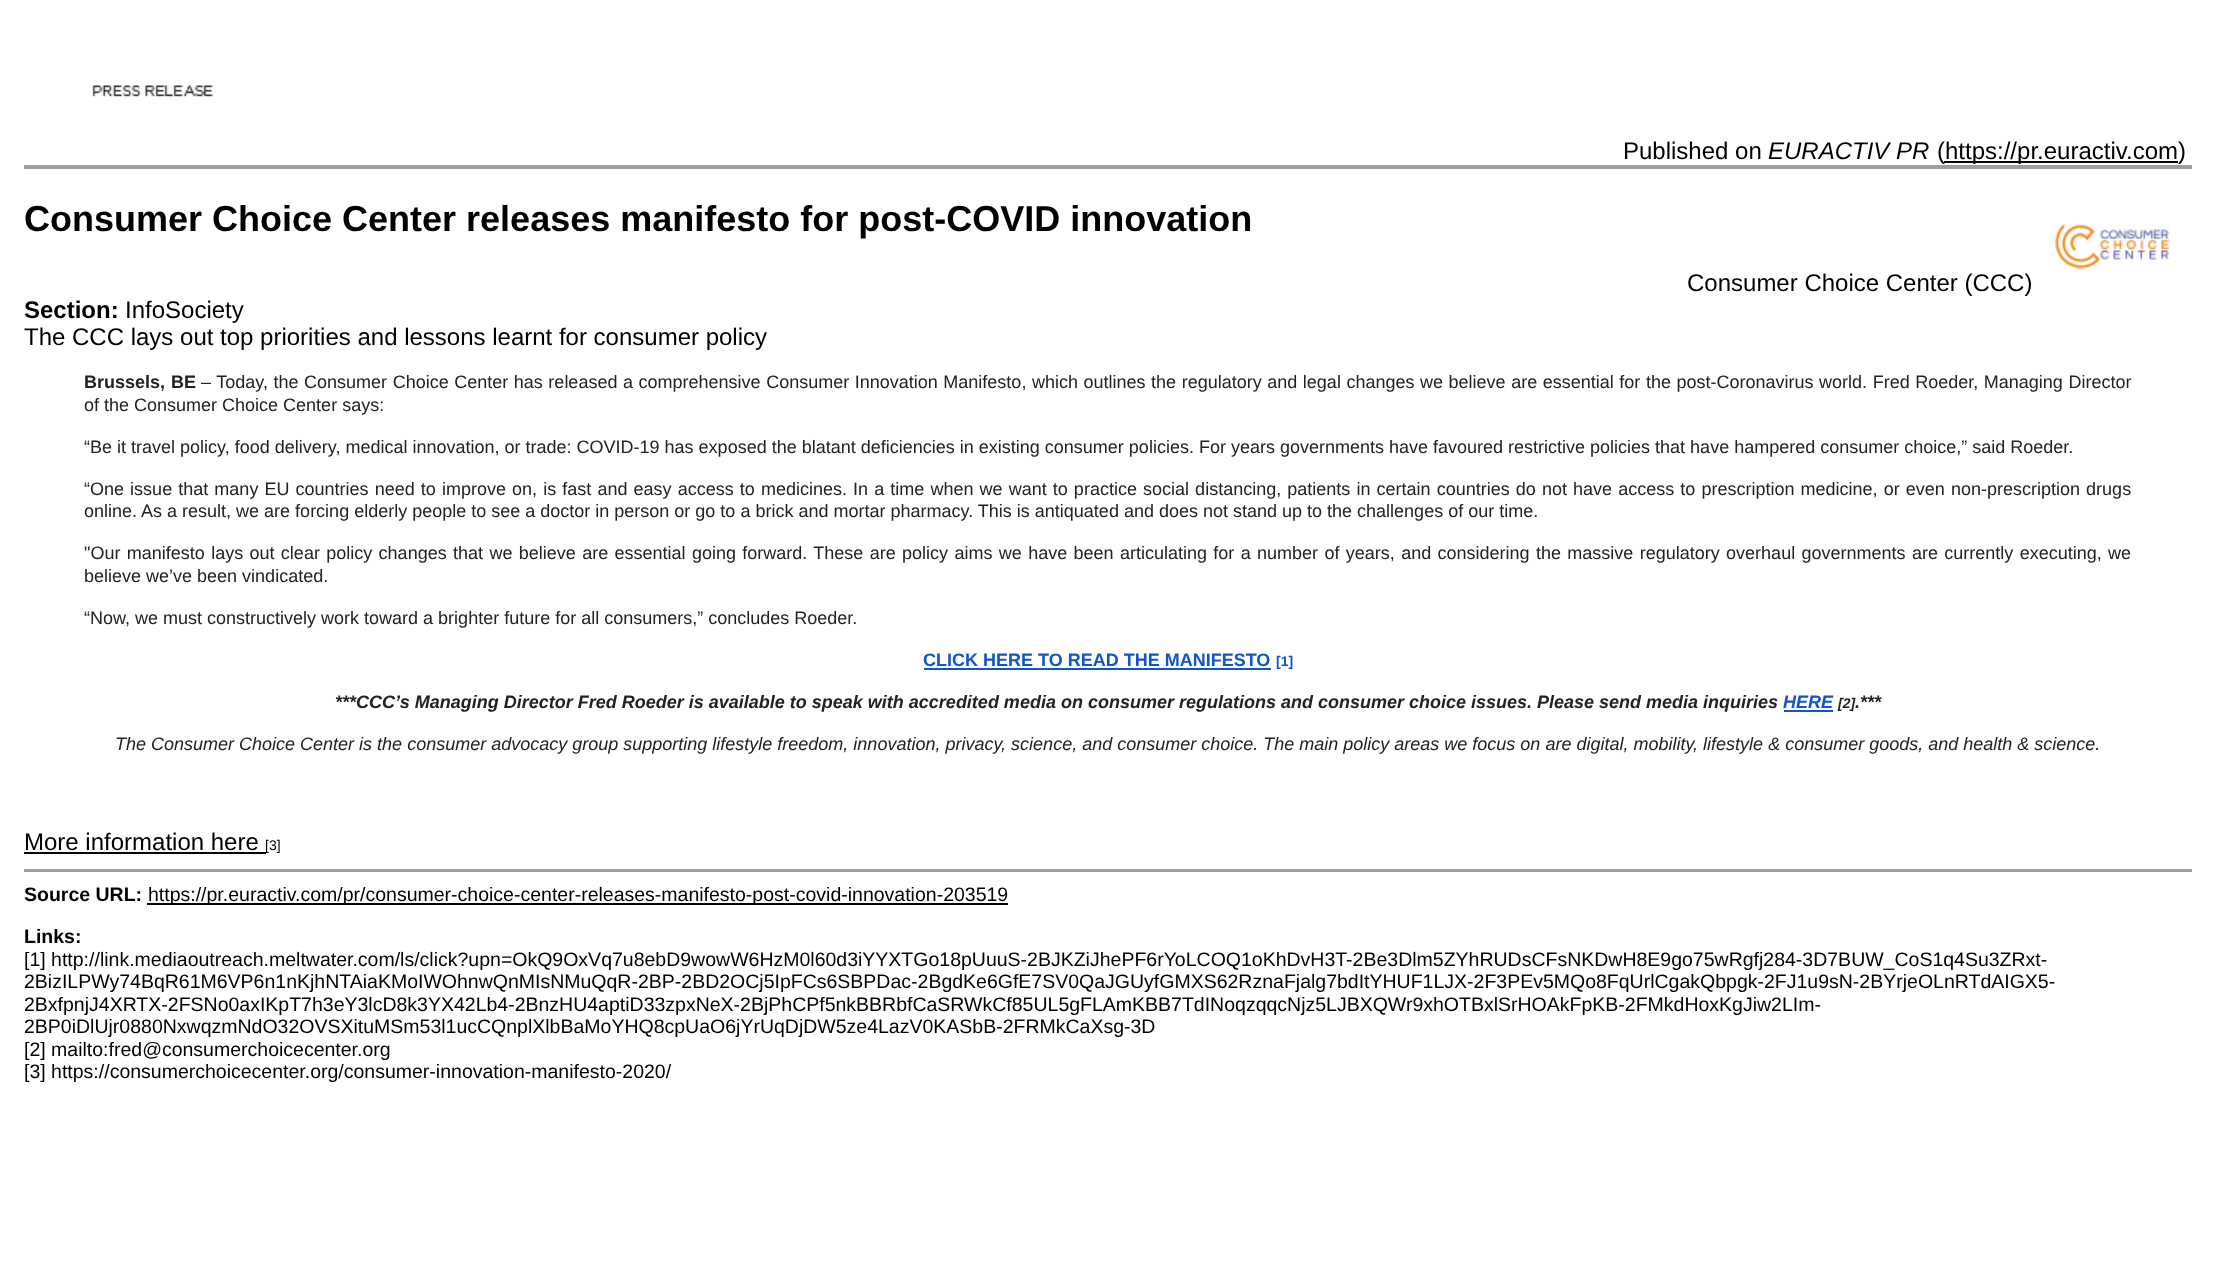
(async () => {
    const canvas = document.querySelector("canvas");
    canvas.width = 2215;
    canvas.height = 1284;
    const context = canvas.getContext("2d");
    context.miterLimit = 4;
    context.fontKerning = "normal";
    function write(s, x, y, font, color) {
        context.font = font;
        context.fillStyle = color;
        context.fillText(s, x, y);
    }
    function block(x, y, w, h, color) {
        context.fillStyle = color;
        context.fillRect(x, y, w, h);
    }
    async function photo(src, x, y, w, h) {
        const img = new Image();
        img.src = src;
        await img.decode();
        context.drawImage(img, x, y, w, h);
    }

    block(0, 0, 2215, 1284, "rgb(255, 255, 255)");
    await photo("media/1.png", 92, 85, 122, 12);
    write("Published on", 1623, 159, "24px Liberation Sans", "rgb(0, 0, 0)");
    write("EURACTIV PR", 1768, 159, "italic 24px Liberation Sans", "rgb(0, 0, 0)");
    write("(", 1937, 159, "24px Liberation Sans", "rgb(0, 0, 0)");
    block(1944, 161, 234, 2, "rgb(0, 0, 0)");
    write("https://pr.euractiv.com)", 1945, 159, "24px Liberation Sans", "rgb(0, 0, 0)");
    block(24, 165, 2168, 4, "rgb(158, 158, 158)");
    write("Consumer Choice Center releases manifesto for post-COVID innovation", 24, 231, "bold 36px Liberation Sans", "rgb(0, 0, 0)");
    write("Consumer Choice Center (CCC)", 1687, 291, "24px Liberation Sans", "rgb(0, 0, 0)");
    await photo("media/2.png", 2054, 224, 116, 45);
    write("Section:", 24, 318, "bold 24px Liberation Sans", "rgb(0, 0, 0)");
    write("InfoSociety", 125, 318, "24px Liberation Sans", "rgb(0, 0, 0)");
    write("The CCC lays out top priorities and lessons learnt for consumer policy", 24, 345, "24px Liberation Sans", "rgb(0, 0, 0)");
    context.wordSpacing = "1px";
    write("Brussels, BE", 84, 388, "bold 18px Liberation Sans", "rgb(34, 34, 34)");
    context.wordSpacing = "0.55px";
    write("– Today, the Consumer Choice Center has released a comprehensive Consumer Innovation Manifesto, which outlines the regulatory and legal changes we believe are essential for the post-Coronavirus world. Fred Roeder, Managing Director", 201, 388, "18px Liberation Sans", "rgb(34, 34, 34)");
    context.wordSpacing = "0px";
    write("of the Consumer Choice Center says:", 84, 411, "18px Liberation Sans", "rgb(34, 34, 34)");
    write("“Be it travel policy, food delivery, medical innovation, or trade: COVID-19 has exposed the blatant deficiencies in existing consumer policies. For years governments have favoured restrictive policies that have hampered consumer choice,” said Roeder.", 84, 453, "18px Liberation Sans", "rgb(34, 34, 34)");
    context.wordSpacing = "1.1px";
    write("“One issue that many EU countries need to improve on, is fast and easy access to medicines. In a time when we want to practice social distancing, patients in certain countries do not have access to prescription medicine, or even non-prescription drugs", 84, 495, "18px Liberation Sans", "rgb(34, 34, 34)");
    context.wordSpacing = "0px";
    write("online. As a result, we are forcing elderly people to see a doctor in person or go to a brick and mortar pharmacy. This is antiquated and does not stand up to the challenges of our time.", 84, 517, "18px Liberation Sans", "rgb(34, 34, 34)");
    context.wordSpacing = "1.35px";
    write("\"Our manifesto lays out clear policy changes that we believe are essential going forward. These are policy aims we have been articulating for a number of years, and considering the massive regulatory overhaul governments are currently executing, we", 84, 559, "18px Liberation Sans", "rgb(34, 34, 34)");
    context.wordSpacing = "0px";
    write("believe we’ve been vindicated.", 84, 582, "18px Liberation Sans", "rgb(34, 34, 34)");
    write("“Now, we must constructively work toward a brighter future for all consumers,” concludes Roeder.", 84, 624, "18px Liberation Sans", "rgb(34, 34, 34)");
    write("CLICK HERE TO READ THE MANIFESTO", 923, 666, "bold 18px Liberation Sans", "rgb(17, 85, 204)");
    block(924, 668, 347, 2, "rgb(17, 85, 204)");
    write("[1]", 1276, 666, "bold 14px Liberation Sans", "rgb(17, 85, 204)");
    write("***CCC’s Managing Director Fred Roeder is available to speak with accredited media on consumer regulations and consumer choice issues. Please send media inquiries", 335, 708, "italic bold 18px Liberation Sans", "rgb(34, 34, 34)");
    write("HERE", 1783, 708, "italic bold 18px Liberation Sans", "rgb(17, 85, 204)");
    write("[2]", 1838, 708, "italic bold 14px Liberation Sans", "rgb(34, 34, 34)");
    block(1784, 710, 49, 2, "rgb(17, 85, 204)");
    write(".***", 1855, 708, "italic bold 18px Liberation Sans", "rgb(34, 34, 34)");
    write("The Consumer Choice Center is the consumer advocacy group supporting lifestyle freedom, innovation, privacy, science, and consumer choice. The main policy areas we focus on are digital, mobility, lifestyle & consumer goods, and health & science.", 115, 750, "italic 18px Liberation Sans", "rgb(34, 34, 34)");
    write("More information here", 24, 850, "24px Liberation Sans", "rgb(0, 0, 0)");
    block(24, 852, 242, 2, "rgb(0, 0, 0)");
    write("[3]", 265, 850, "14px Liberation Sans", "rgb(0, 0, 0)");
    block(24, 869, 2168, 3, "rgb(158, 158, 158)");
    write("Source URL:", 24, 901, "bold 19.5px Liberation Sans", "rgb(0, 0, 0)");
    block(147, 903, 861, 2, "rgb(0, 0, 0)");
    write("https://pr.euractiv.com/pr/consumer-choice-center-releases-manifesto-post-covid-innovation-203519", 148, 901, "19.5px Liberation Sans", "rgb(0, 0, 0)");
    write("Links:", 24, 943, "bold 19.5px Liberation Sans", "rgb(0, 0, 0)");
    write("[1] http://link.mediaoutreach.meltwater.com/ls/click?upn=OkQ9OxVq7u8ebD9wowW6HzM0l60d3iYYXTGo18pUuuS-2BJKZiJhePF6rYoLCOQ1oKhDvH3T-2Be3Dlm5ZYhRUDsCFsNKDwH8E9go75wRgfj284-3D7BUW_CoS1q4Su3ZRxt-", 24, 966, "19.5px Liberation Sans", "rgb(0, 0, 0)");
    write("2BizILPWy74BqR61M6VP6n1nKjhNTAiaKMoIWOhnwQnMIsNMuQqR-2BP-2BD2OCj5IpFCs6SBPDac-2BgdKe6GfE7SV0QaJGUyfGMXS62RznaFjalg7bdItYHUF1LJX-2F3PEv5MQo8FqUrlCgakQbpgk-2FJ1u9sN-2BYrjeOLnRTdAIGX5-", 24, 988, "19.5px Liberation Sans", "rgb(0, 0, 0)");
    write("2BxfpnjJ4XRTX-2FSNo0axIKpT7h3eY3lcD8k3YX42Lb4-2BnzHU4aptiD33zpxNeX-2BjPhCPf5nkBBRbfCaSRWkCf85UL5gFLAmKBB7TdINoqzqqcNjz5LJBXQWr9xhOTBxlSrHOAkFpKB-2FMkdHoxKgJiw2LIm-", 24, 1011, "19.5px Liberation Sans", "rgb(0, 0, 0)");
    write("2BP0iDlUjr0880NxwqzmNdO32OVSXituMSm53l1ucCQnplXlbBaMoYHQ8cpUaO6jYrUqDjDW5ze4LazV0KASbB-2FRMkCaXsg-3D", 24, 1033, "19.5px Liberation Sans", "rgb(0, 0, 0)");
    write("[2] mailto:fred@consumerchoicecenter.org", 24, 1056, "19.5px Liberation Sans", "rgb(0, 0, 0)");
    write("[3] https://consumerchoicecenter.org/consumer-innovation-manifesto-2020/", 24, 1078, "19.5px Liberation Sans", "rgb(0, 0, 0)");
})();
